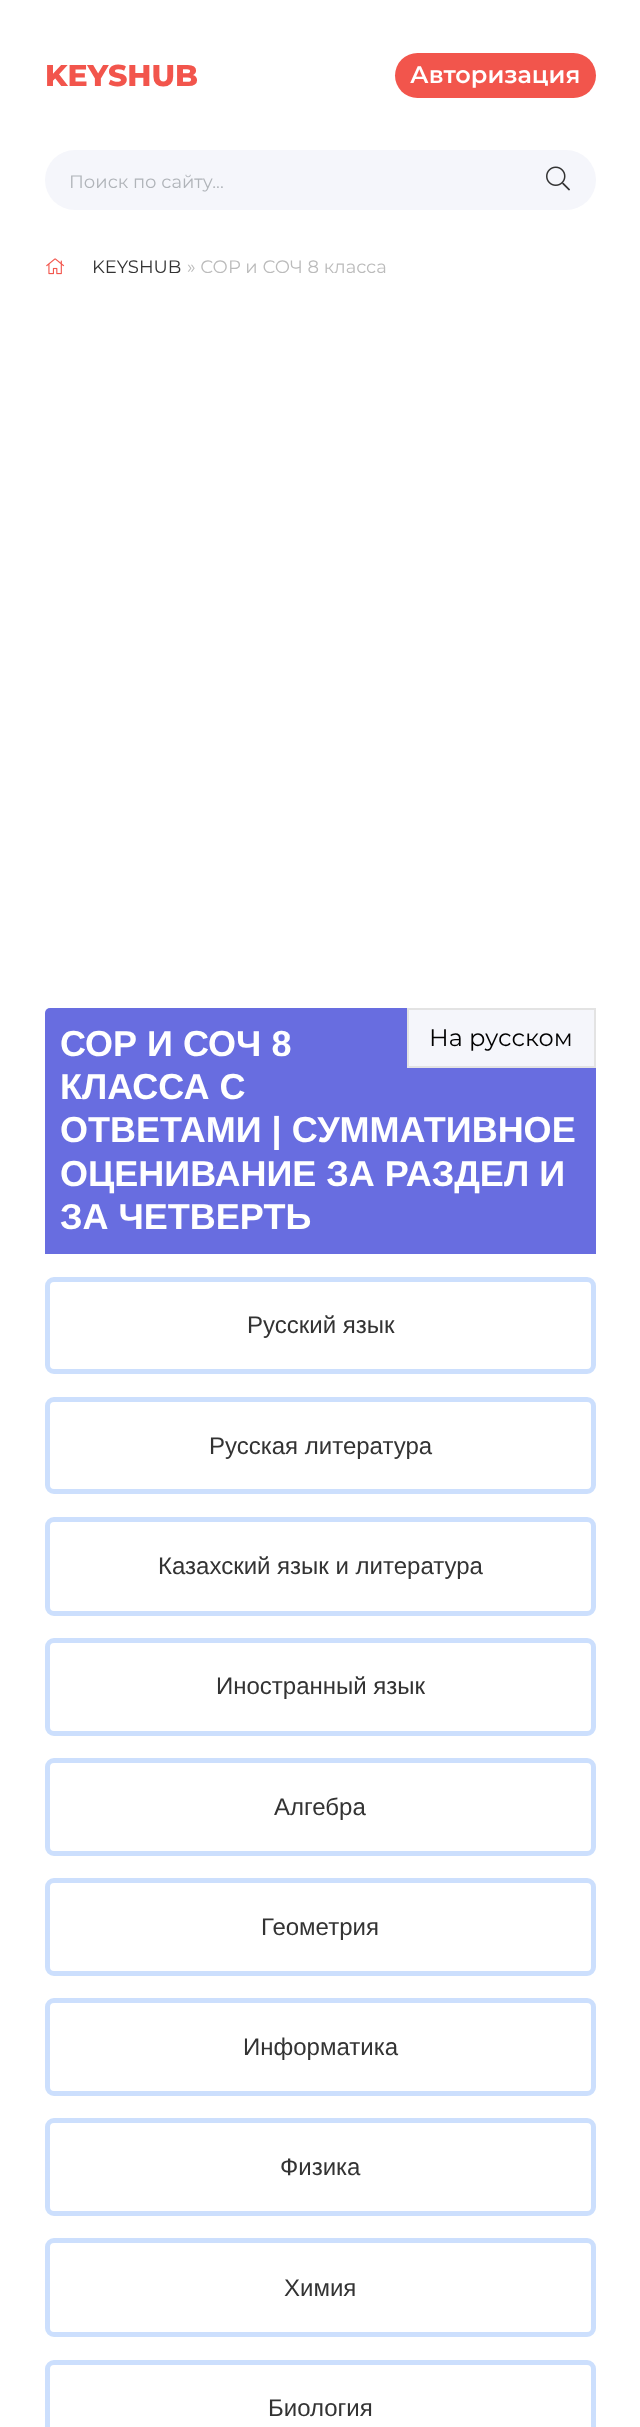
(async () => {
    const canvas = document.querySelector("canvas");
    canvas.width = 640;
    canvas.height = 2427;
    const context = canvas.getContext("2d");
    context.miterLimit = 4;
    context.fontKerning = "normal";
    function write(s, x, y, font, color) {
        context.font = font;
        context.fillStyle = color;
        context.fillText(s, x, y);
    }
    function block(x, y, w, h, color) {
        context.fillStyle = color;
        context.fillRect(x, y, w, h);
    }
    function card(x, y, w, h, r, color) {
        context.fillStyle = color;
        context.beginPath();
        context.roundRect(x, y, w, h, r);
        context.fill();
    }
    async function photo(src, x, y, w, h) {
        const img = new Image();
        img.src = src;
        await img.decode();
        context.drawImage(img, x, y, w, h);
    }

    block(0, 0, 640, 2427, "rgb(255, 255, 255)");
    write("KEYSHUB", 45, 86, "800 30px Montserrat", "rgb(242, 85, 76)");
    card(395, 53, 201, 45, 22.5, "rgb(242, 85, 76)");
    write("Авторизация", 410, 83, "600 24px Montserrat", "rgb(255, 255, 255)");
    card(45, 150, 551, 60, 30, "rgb(245, 246, 251)");
    write("Поиск по сайту...", 69, 188, "18px Montserrat", "rgb(176, 180, 185)");
    await photo("media/1.png", 546, 166, 24, 25);
    await photo("media/2.png", 46, 258, 19, 17);
    write("KEYSHUB", 92, 273, "18px Montserrat", "rgb(51, 51, 51)");
    write("» СОР и СОЧ 8 класса", 187, 273, "18px Montserrat", "rgb(187, 187, 187)");
    context.fillStyle = "rgb(104, 109, 224)";
    context.beginPath();
    context.roundRect(45, 1008, 551, 246, [5, 5, 0, 0]);
    context.fill();
    context.fillStyle = "rgb(245, 246, 251)";
    context.beginPath();
    context.rect(408, 1009, 187, 58);
    context.fill();
    context.strokeStyle = "rgb(227, 227, 227)";
    context.lineWidth = 2;
    context.stroke();
    write("На русском", 429, 1046, "24px Montserrat", "rgb(0, 0, 0)");
    write("СОР И СОЧ 8", 60, 1056, "bold 36px Liberation Sans", "rgb(255, 255, 255)");
    write("КЛАССА С", 60, 1099, "bold 36px Liberation Sans", "rgb(255, 255, 255)");
    write("ОТВЕТАМИ | СУММАТИВНОЕ", 60, 1142, "bold 36px Liberation Sans", "rgb(255, 255, 255)");
    write("ОЦЕНИВАНИЕ ЗА РАЗДЕЛ И", 60, 1186, "bold 36px Liberation Sans", "rgb(255, 255, 255)");
    write("ЗА ЧЕТВЕРТЬ", 60, 1229, "bold 36px Liberation Sans", "rgb(255, 255, 255)");
    context.beginPath();
    context.roundRect(47.5, 1279.5, 546, 92, 6.5);
    context.strokeStyle = "rgb(204, 223, 253)";
    context.lineWidth = 5;
    context.stroke();
    write("Русский язык", 247, 1333, "24px Liberation Sans", "rgb(51, 51, 51)");
    context.beginPath();
    context.roundRect(47.5, 1399.5, 546, 92, 6.5);
    context.stroke();
    write("Русская литература", 209, 1454, "24px Liberation Sans", "rgb(51, 51, 51)");
    context.beginPath();
    context.roundRect(47.5, 1519.5, 546, 94, 6.5);
    context.stroke();
    write("Казахский язык и литература", 158, 1574, "24px Liberation Sans", "rgb(51, 51, 51)");
    context.beginPath();
    context.roundRect(47.5, 1640.5, 546, 93, 6.5);
    context.stroke();
    write("Иностранный язык", 216, 1694, "24px Liberation Sans", "rgb(51, 51, 51)");
    context.beginPath();
    context.roundRect(47.5, 1760.5, 546, 93, 6.5);
    context.stroke();
    write("Алгебра", 274, 1815, "24px Liberation Sans", "rgb(51, 51, 51)");
    context.beginPath();
    context.roundRect(47.5, 1880.5, 546, 93, 6.5);
    context.stroke();
    write("Геометрия", 261, 1935, "24px Liberation Sans", "rgb(51, 51, 51)");
    context.beginPath();
    context.roundRect(47.5, 2000.5, 546, 93, 6.5);
    context.stroke();
    write("Информатика", 243, 2055, "24px Liberation Sans", "rgb(51, 51, 51)");
    context.beginPath();
    context.roundRect(47.5, 2120.5, 546, 93, 6.5);
    context.stroke();
    write("Физика", 280, 2175, "24px Liberation Sans", "rgb(51, 51, 51)");
    context.beginPath();
    context.roundRect(47.5, 2240.5, 546, 94, 6.5);
    context.stroke();
    write("Химия", 284, 2296, "24px Liberation Sans", "rgb(51, 51, 51)");
    context.beginPath();
    context.roundRect(47.5, 2362.5, 546, 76, 6.5);
    context.stroke();
    write("Биология", 268, 2416, "24px Liberation Sans", "rgb(51, 51, 51)");
})();
